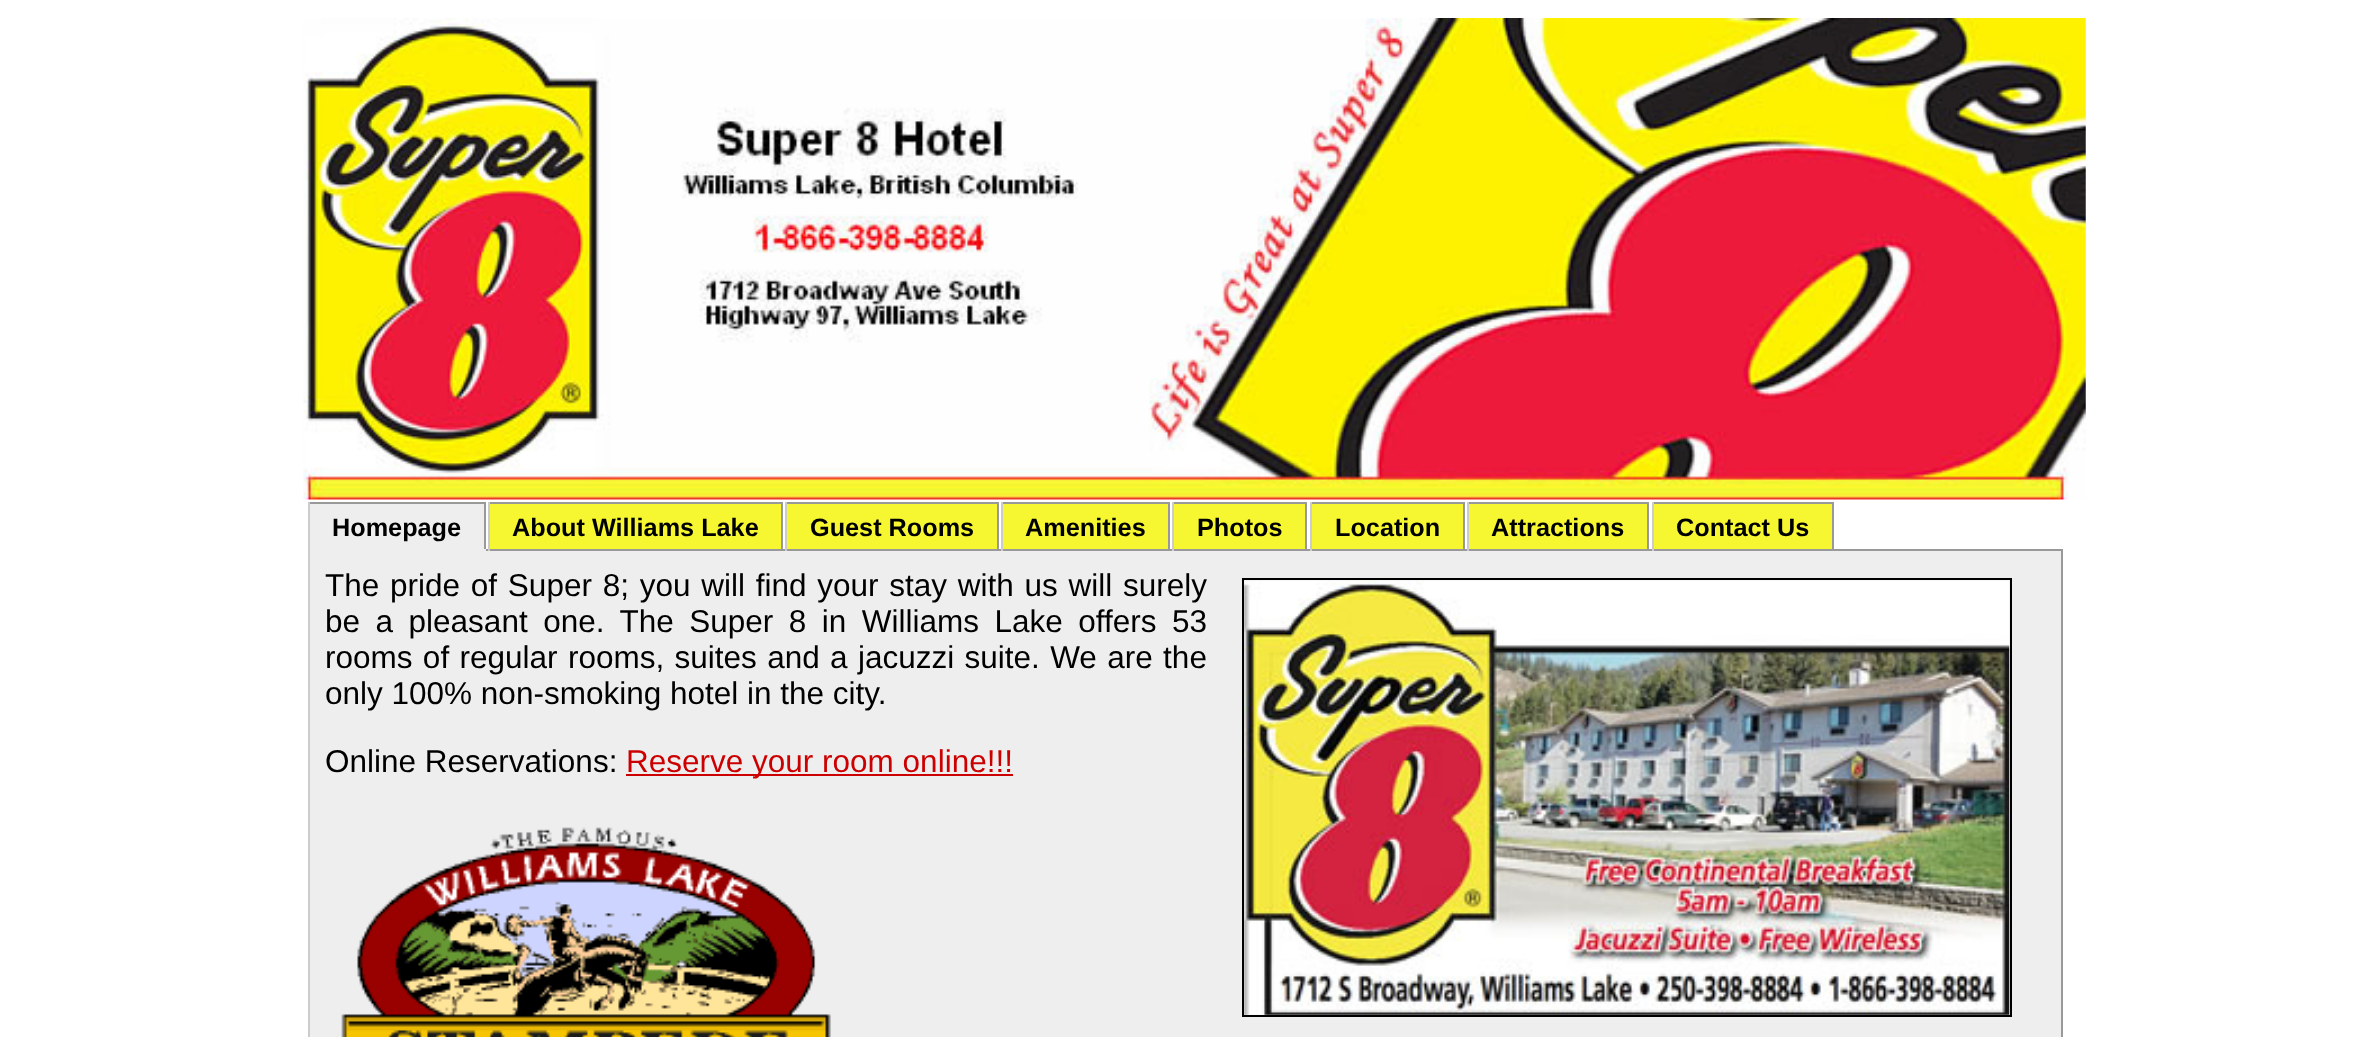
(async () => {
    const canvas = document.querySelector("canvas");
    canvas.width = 2368;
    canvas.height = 1037;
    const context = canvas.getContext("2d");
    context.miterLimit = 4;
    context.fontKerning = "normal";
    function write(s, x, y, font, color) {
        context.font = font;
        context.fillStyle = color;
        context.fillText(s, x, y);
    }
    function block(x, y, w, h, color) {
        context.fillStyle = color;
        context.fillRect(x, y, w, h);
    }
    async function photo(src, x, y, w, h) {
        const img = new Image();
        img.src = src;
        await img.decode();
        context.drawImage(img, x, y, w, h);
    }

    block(0, 0, 2368, 1037, "rgb(255, 255, 255)");
    await photo("media/1.png", 303, 18, 1783, 482);
    block(310, 504, 174, 45, "rgb(238, 238, 238)");
    block(308, 502, 178, 2, "rgb(153, 153, 153)");
    block(484, 502, 2, 49, "rgb(153, 153, 153)");
    block(308, 549, 2, 488, "rgb(204, 204, 204)");
    block(308, 549, 178, 2, "rgb(238, 238, 238)");
    block(308, 502, 2, 49, "rgb(204, 204, 204)");
    write("Homepage", 332, 536, "bold 25.25px Liberation Sans", "rgb(0, 0, 0)");
    block(490, 504, 291, 45, "rgb(246, 247, 49)");
    block(488, 502, 295, 2, "rgb(153, 153, 153)");
    block(486, 549, 1577, 2, "rgb(153, 153, 153)");
    block(781, 502, 2, 49, "rgb(153, 153, 153)");
    block(488, 502, 2, 49, "rgb(204, 204, 204)");
    write("About Williams Lake", 512, 536, "bold 25.25px Liberation Sans", "rgb(0, 0, 0)");
    block(787, 504, 210, 45, "rgb(246, 247, 49)");
    block(785, 502, 214, 2, "rgb(153, 153, 153)");
    block(997, 502, 2, 49, "rgb(153, 153, 153)");
    block(785, 502, 2, 49, "rgb(204, 204, 204)");
    write("Guest Rooms", 810, 536, "bold 25.25px Liberation Sans", "rgb(0, 0, 0)");
    block(1003, 504, 165, 45, "rgb(246, 247, 49)");
    block(1001, 502, 169, 2, "rgb(153, 153, 153)");
    block(1168, 502, 2, 49, "rgb(153, 153, 153)");
    block(1001, 502, 2, 49, "rgb(204, 204, 204)");
    write("Amenities", 1025, 536, "bold 25.25px Liberation Sans", "rgb(0, 0, 0)");
    block(1174, 504, 131, 45, "rgb(246, 247, 49)");
    block(1172, 502, 135, 2, "rgb(153, 153, 153)");
    block(1305, 502, 2, 49, "rgb(153, 153, 153)");
    block(1172, 502, 2, 49, "rgb(204, 204, 204)");
    write("Photos", 1197, 536, "bold 25.25px Liberation Sans", "rgb(0, 0, 0)");
    block(1312, 504, 151, 45, "rgb(246, 247, 49)");
    block(1310, 502, 155, 2, "rgb(153, 153, 153)");
    block(1463, 502, 2, 49, "rgb(153, 153, 153)");
    block(1310, 502, 2, 49, "rgb(204, 204, 204)");
    write("Location", 1335, 536, "bold 25.25px Liberation Sans", "rgb(0, 0, 0)");
    block(1469, 504, 178, 45, "rgb(246, 247, 49)");
    block(1467, 502, 182, 2, "rgb(153, 153, 153)");
    block(1647, 502, 2, 49, "rgb(153, 153, 153)");
    block(1467, 502, 2, 49, "rgb(204, 204, 204)");
    write("Attractions", 1491, 536, "bold 25.25px Liberation Sans", "rgb(0, 0, 0)");
    block(1654, 504, 178, 45, "rgb(246, 247, 49)");
    block(1652, 502, 182, 2, "rgb(153, 153, 153)");
    block(1832, 502, 2, 49, "rgb(153, 153, 153)");
    block(1652, 502, 2, 49, "rgb(204, 204, 204)");
    write("Contact Us", 1676, 536, "bold 25.25px Liberation Sans", "rgb(0, 0, 0)");
    block(310, 551, 1751, 486, "rgb(238, 238, 238)");
    block(2061, 549, 2, 488, "rgb(153, 153, 153)");
    context.wordSpacing = "2px";
    write("The pride of Super 8; you will find your stay with us will surely", 325, 596, "31.5px Liberation Sans", "rgb(0, 0, 0)");
    context.strokeStyle = "rgb(0, 0, 0)";
    context.lineWidth = 2;
    context.strokeRect(1243, 579, 768, 437);
    await photo("media/2.png", 1244, 580, 766, 435);
    context.wordSpacing = "6.75px";
    write("be a pleasant one. The Super 8 in Williams Lake offers 53", 325, 632, "31.5px Liberation Sans", "rgb(0, 0, 0)");
    context.wordSpacing = "1.6px";
    write("rooms of regular rooms, suites and a jacuzzi suite. We are the", 325, 668, "31.5px Liberation Sans", "rgb(0, 0, 0)");
    context.wordSpacing = "0px";
    write("only 100% non-smoking hotel in the city.", 325, 704, "31.5px Liberation Sans", "rgb(0, 0, 0)");
    write("Online Reservations:", 325, 772, "31.5px Liberation Sans", "rgb(0, 0, 0)");
    block(626, 774, 387, 2, "rgb(204, 0, 0)");
    write("Reserve your room online!!!", 626, 772, "31.5px Liberation Sans", "rgb(204, 0, 0)");
    await photo("media/3.png", 341, 827, 490, 210);
})();
